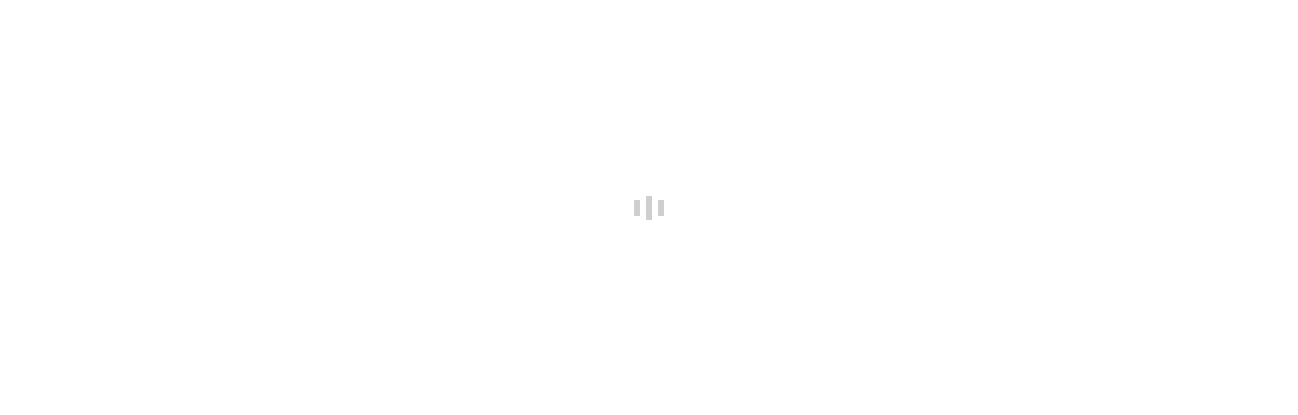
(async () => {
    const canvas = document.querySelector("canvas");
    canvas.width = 1298;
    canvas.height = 415;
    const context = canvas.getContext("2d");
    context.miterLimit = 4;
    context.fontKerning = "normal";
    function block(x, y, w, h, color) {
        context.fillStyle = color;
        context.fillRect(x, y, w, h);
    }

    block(0, 0, 1298, 415, "rgb(255, 255, 255)");
    block(646, 196, 6, 24, "rgb(207, 207, 207)");
    block(634, 200, 6, 16, "rgb(207, 207, 207)");
    block(658, 200, 6, 16, "rgb(207, 207, 207)");
})();
